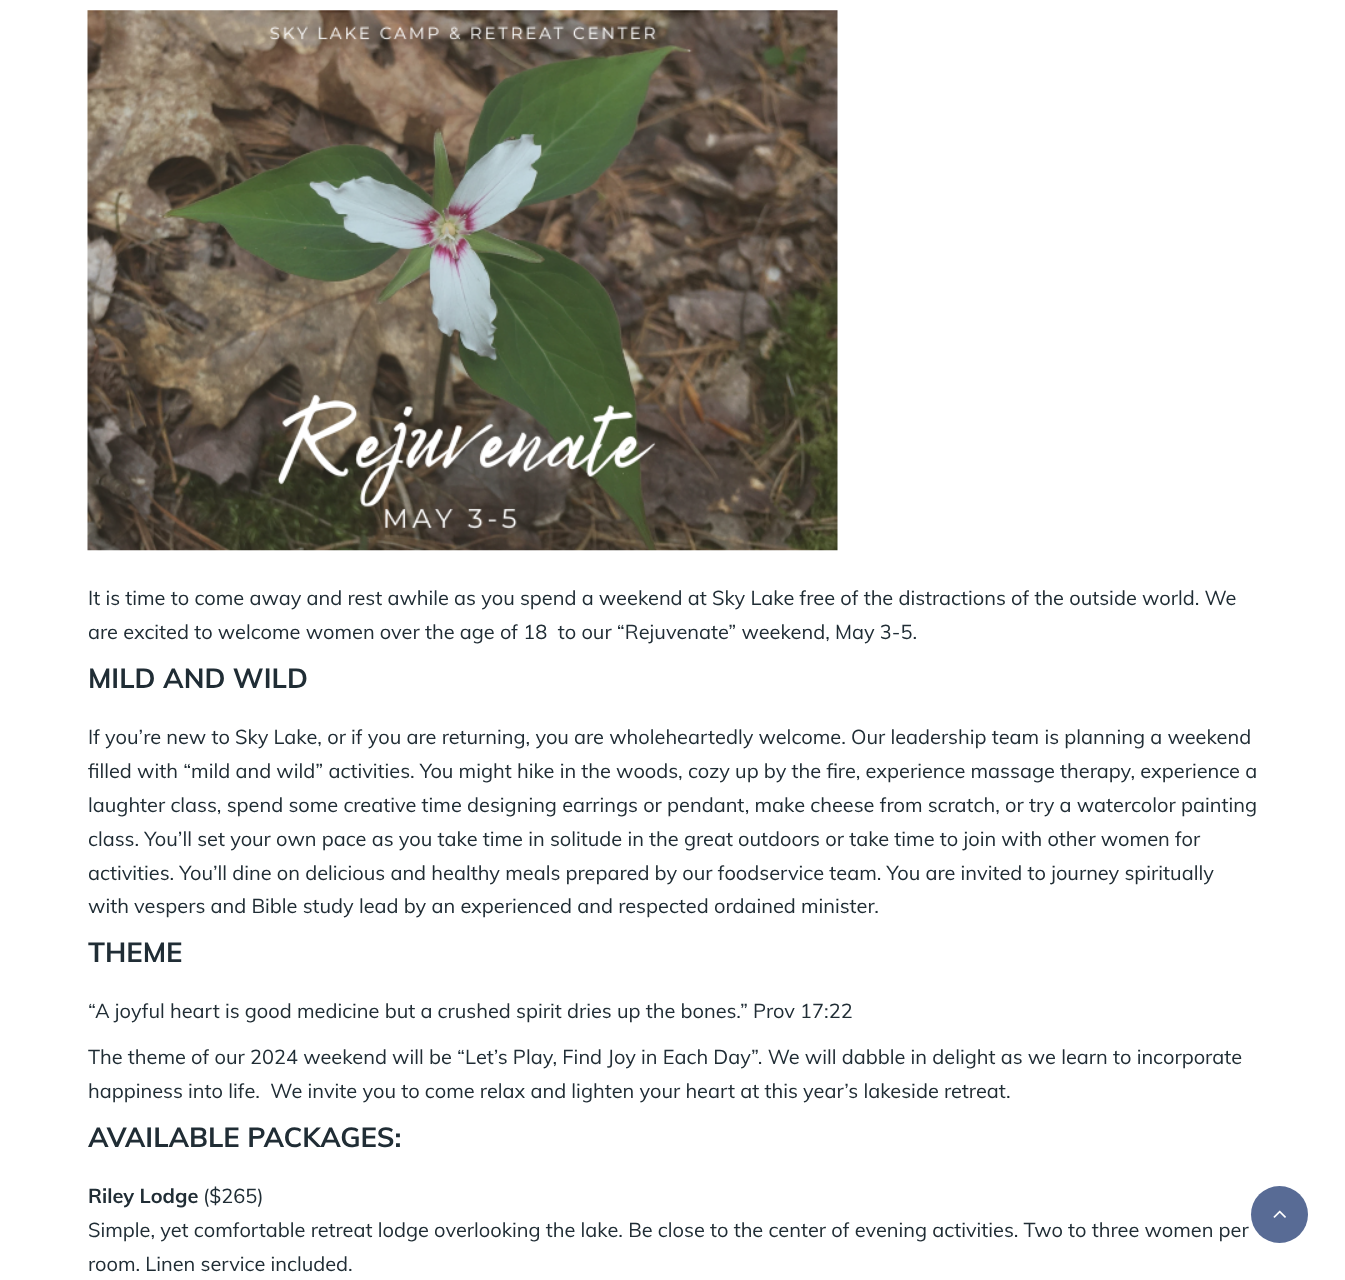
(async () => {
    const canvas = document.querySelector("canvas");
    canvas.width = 1345;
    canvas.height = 1280;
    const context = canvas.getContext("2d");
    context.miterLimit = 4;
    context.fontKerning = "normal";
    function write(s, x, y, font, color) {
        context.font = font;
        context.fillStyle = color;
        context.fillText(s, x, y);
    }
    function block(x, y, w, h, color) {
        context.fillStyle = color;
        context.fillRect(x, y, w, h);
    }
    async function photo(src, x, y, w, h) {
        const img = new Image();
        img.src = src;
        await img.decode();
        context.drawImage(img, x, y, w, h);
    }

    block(0, 0, 1345, 1280, "rgb(255, 255, 255)");
    await photo("media/1.png", 87, 10, 751, 541);
    write("It is time to come away and rest awhile as you spend a weekend at Sky Lake free of the distractions of the outside world. We", 88, 605, "20px Muli", "rgb(32, 45, 53)");
    write("are excited to welcome women over the age of 18  to our “Rejuvenate” weekend, May 3-5.", 88, 639, "20px Muli", "rgb(32, 45, 53)");
    write("MILD AND WILD", 88, 688, "bold 27.5px Muli", "rgb(32, 45, 53)");
    write("If you’re new to Sky Lake, or if you are returning, you are wholeheartedly welcome. Our leadership team is planning a weekend", 88, 744, "20px Muli", "rgb(32, 45, 53)");
    write("filled with “mild and wild” activities. You might hike in the woods, cozy up by the fire, experience massage therapy, experience a", 88, 778, "20px Muli", "rgb(32, 45, 53)");
    write("laughter class, spend some creative time designing earrings or pendant, make cheese from scratch, or try a watercolor painting", 88, 812, "20px Muli", "rgb(32, 45, 53)");
    write("class. You’ll set your own pace as you take time in solitude in the great outdoors or take time to join with other women for", 88, 846, "20px Muli", "rgb(32, 45, 53)");
    write("activities. You’ll dine on delicious and healthy meals prepared by our foodservice team. You are invited to journey spiritually", 88, 880, "20px Muli", "rgb(32, 45, 53)");
    write("with vespers and Bible study lead by an experienced and respected ordained minister.", 88, 913, "20px Muli", "rgb(32, 45, 53)");
    write("THEME", 88, 962, "bold 27.5px Muli", "rgb(32, 45, 53)");
    write("“A joyful heart is good medicine but a crushed spirit dries up the bones.” Prov 17:22", 88, 1018, "20px Muli", "rgb(32, 45, 53)");
    write("The theme of our 2024 weekend will be “Let’s Play, Find Joy in Each Day”. We will dabble in delight as we learn to incorporate", 88, 1064, "20px Muli", "rgb(32, 45, 53)");
    write("happiness into life.  We invite you to come relax and lighten your heart at this year’s lakeside retreat.", 88, 1098, "20px Muli", "rgb(32, 45, 53)");
    write("AVAILABLE PACKAGES:", 88, 1147, "bold 27.5px Muli", "rgb(32, 45, 53)");
    write("Riley Lodge", 88, 1203, "bold 20px Muli", "rgb(32, 45, 53)");
    write("($265)", 203, 1203, "20px Muli", "rgb(32, 45, 53)");
    write("Simple, yet comfortable retreat lodge overlooking the lake. Be close to the center of evening activities. Two to three women per", 88, 1237, "20px Muli", "rgb(32, 45, 53)");
    write("room. Linen service included.", 88, 1271, "20px Muli", "rgb(32, 45, 53)");
    context.fillStyle = "rgb(88, 107, 149)";
    context.beginPath();
    context.arc(1279.5, 1214.5, 28.5, 0, Math.PI * 2);
    context.fill();
    await photo("media/2.png", 1273, 1210, 13, 8);
})();
